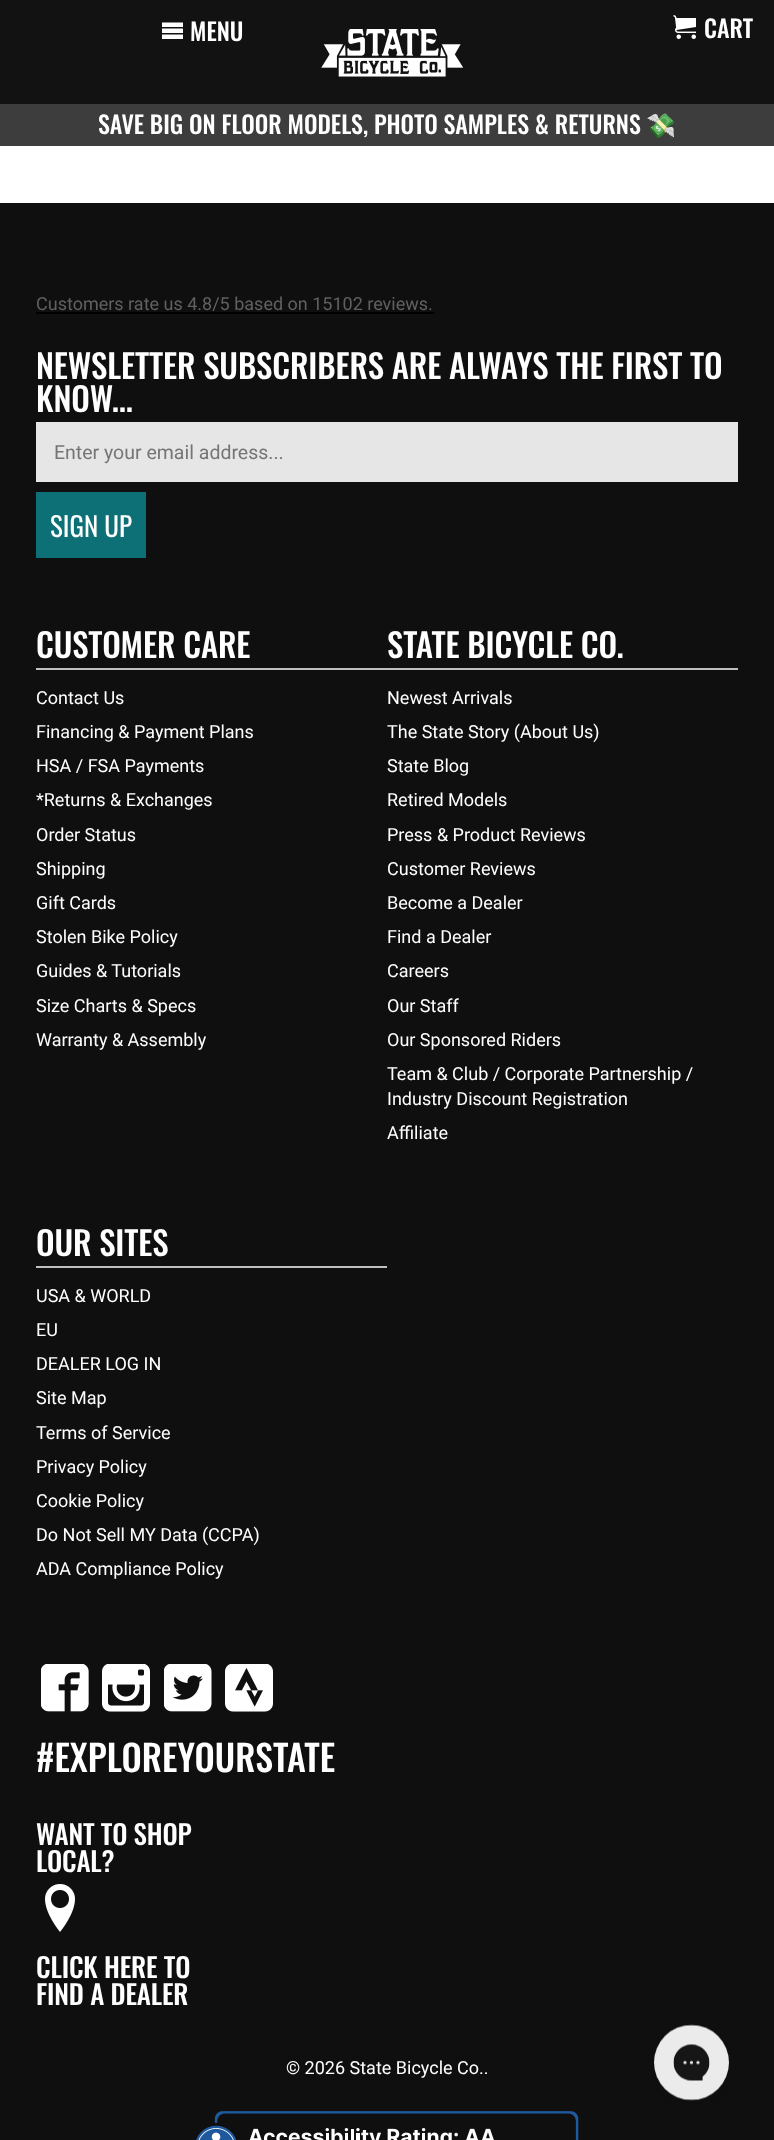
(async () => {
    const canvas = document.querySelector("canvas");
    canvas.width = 774;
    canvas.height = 2140;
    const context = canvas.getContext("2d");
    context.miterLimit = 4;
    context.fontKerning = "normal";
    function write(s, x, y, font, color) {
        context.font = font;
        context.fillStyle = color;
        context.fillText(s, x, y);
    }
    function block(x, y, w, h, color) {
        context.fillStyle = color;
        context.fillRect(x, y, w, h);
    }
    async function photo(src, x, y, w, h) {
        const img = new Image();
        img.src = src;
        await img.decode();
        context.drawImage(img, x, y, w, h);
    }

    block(0, 0, 774, 2140, "rgb(255, 255, 255)");
    block(0, 0, 774, 104, "rgb(18, 18, 18)");
    await photo("media/1.png", 162, 22, 21, 17);
    write("MENU", 190, 41, "500 24px Oswald", "rgb(255, 255, 255)");
    await photo("media/2.png", 321, 29, 143, 48);
    await photo("media/3.png", 673, 15, 23, 24);
    write("CART", 704, 38, "500 24px Oswald", "rgb(255, 255, 255)");
    block(0, 104, 774, 42, "rgb(61, 61, 61)");
    write("SAVE BIG ON FLOOR MODELS, PHOTO SAMPLES & RETURNS", 98, 134, "500 24px Oswald", "rgb(255, 255, 255)");
    write("💸", 646, 134, "24px Noto Color Emoji", "rgb(255, 255, 255)");
    block(0, 203, 774, 1937, "rgb(15, 15, 15)");
    write("Customers rate us 4.8/5 based on 15102 reviews.", 36, 310, "18px Roboto", "rgb(97, 97, 97)");
    block(36, 312, 398, 2, "rgb(0, 0, 0)");
    context.letterSpacing = "-0.15px";
    write("NEWSLETTER SUBSCRIBERS ARE ALWAYS THE FIRST TO", 36, 379, "500 33px Oswald", "rgb(255, 255, 255)");
    write("KNOW...", 36, 412, "500 33px Oswald", "rgb(255, 255, 255)");
    block(36, 422, 702, 60, "rgb(230, 230, 230)");
    context.letterSpacing = "0px";
    write("Enter your email address...", 54, 459, "19.5px Roboto", "rgb(117, 117, 117)");
    block(36, 492, 110, 66, "rgb(12, 112, 118)");
    write("SIGN UP", 50, 537, "27px Oswald", "rgb(255, 255, 255)");
    block(36, 668, 702, 2, "rgb(191, 191, 191)");
    context.letterSpacing = "-0.15px";
    write("CUSTOMER CARE", 36, 658, "500 33px Oswald", "rgb(255, 255, 255)");
    context.letterSpacing = "0px";
    write("Contact Us", 36, 704, "18px Roboto", "rgb(255, 255, 255)");
    write("Financing & Payment Plans", 36, 738, "18px Roboto", "rgb(255, 255, 255)");
    write("HSA / FSA Payments", 36, 772, "18px Roboto", "rgb(255, 255, 255)");
    write("*Returns & Exchanges", 36, 806, "18px Roboto", "rgb(255, 255, 255)");
    write("Order Status", 36, 841, "18px Roboto", "rgb(255, 255, 255)");
    write("Shipping", 36, 875, "18px Roboto", "rgb(255, 255, 255)");
    write("Gift Cards", 36, 909, "18px Roboto", "rgb(255, 255, 255)");
    write("Stolen Bike Policy", 36, 943, "18px Roboto", "rgb(255, 255, 255)");
    write("Guides & Tutorials", 36, 977, "18px Roboto", "rgb(255, 255, 255)");
    write("Size Charts & Specs", 36, 1012, "18px Roboto", "rgb(255, 255, 255)");
    write("Warranty & Assembly", 36, 1046, "18px Roboto", "rgb(255, 255, 255)");
    context.letterSpacing = "-0.15px";
    write("STATE BICYCLE CO.", 387, 658, "500 33px Oswald", "rgb(255, 255, 255)");
    context.letterSpacing = "0px";
    write("Newest Arrivals", 387, 704, "18px Roboto", "rgb(255, 255, 255)");
    write("The State Story (About Us)", 387, 738, "18px Roboto", "rgb(255, 255, 255)");
    write("State Blog", 387, 772, "18px Roboto", "rgb(255, 255, 255)");
    write("Retired Models", 387, 806, "18px Roboto", "rgb(255, 255, 255)");
    write("Press & Product Reviews", 387, 841, "18px Roboto", "rgb(255, 255, 255)");
    write("Customer Reviews", 387, 875, "18px Roboto", "rgb(255, 255, 255)");
    write("Become a Dealer", 387, 909, "18px Roboto", "rgb(255, 255, 255)");
    write("Find a Dealer", 387, 943, "18px Roboto", "rgb(255, 255, 255)");
    write("Careers", 387, 977, "18px Roboto", "rgb(255, 255, 255)");
    write("Our Staff", 387, 1012, "18px Roboto", "rgb(255, 255, 255)");
    write("Our Sponsored Riders", 387, 1046, "18px Roboto", "rgb(255, 255, 255)");
    write("Team & Club / Corporate Partnership /", 387, 1080, "18px Roboto", "rgb(255, 255, 255)");
    write("Industry Discount Registration", 387, 1105, "18px Roboto", "rgb(255, 255, 255)");
    write("Affiliate", 387, 1139, "18px Roboto", "rgb(255, 255, 255)");
    block(36, 1266, 351, 2, "rgb(191, 191, 191)");
    context.letterSpacing = "-0.15px";
    write("OUR SITES", 36, 1256, "500 33px Oswald", "rgb(255, 255, 255)");
    context.letterSpacing = "0px";
    write("USA & WORLD", 36, 1302, "18px Roboto", "rgb(255, 255, 255)");
    write("EU", 36, 1336, "18px Roboto", "rgb(255, 255, 255)");
    write("DEALER LOG IN", 36, 1370, "18px Roboto", "rgb(255, 255, 255)");
    write("Site Map", 36, 1404, "18px Roboto", "rgb(255, 255, 255)");
    write("Terms of Service", 36, 1439, "18px Roboto", "rgb(255, 255, 255)");
    write("Privacy Policy", 36, 1473, "18px Roboto", "rgb(255, 255, 255)");
    write("Cookie Policy", 36, 1507, "18px Roboto", "rgb(255, 255, 255)");
    write("Do Not Sell MY Data (CCPA)", 36, 1541, "18px Roboto", "rgb(255, 255, 255)");
    write("ADA Compliance Policy", 36, 1575, "18px Roboto", "rgb(255, 255, 255)");
    await photo("media/4.png", 41, 1664, 48, 48);
    await photo("media/5.png", 102, 1664, 48, 48);
    await photo("media/6.png", 164, 1664, 48, 48);
    await photo("media/7.png", 225, 1664, 48, 48);
    write("#EXPLOREYOURSTATE", 36, 1772, "500 36px Oswald", "rgb(255, 255, 255)");
    context.letterSpacing = "-0.15px";
    write("WANT TO SHOP", 36, 1845, "500 27px Oswald", "rgb(255, 255, 255)");
    write("LOCAL?", 36, 1872, "500 27px Oswald", "rgb(255, 255, 255)");
    await photo("media/8.png", 45, 1884, 30, 48);
    write("CLICK HERE TO", 36, 1978, "500 27px Oswald", "rgb(255, 255, 255)");
    write("FIND A DEALER", 36, 2005, "500 27px Oswald", "rgb(255, 255, 255)");
    context.letterSpacing = "0px";
    write("© 2026 State Bicycle Co..", 286, 2074, "18px Roboto", "rgb(255, 255, 255)");
    await photo("media/9.png", 196, 2111, 383, 29);
    await photo("media/10.png", 654, 2024, 75, 77);
})();
